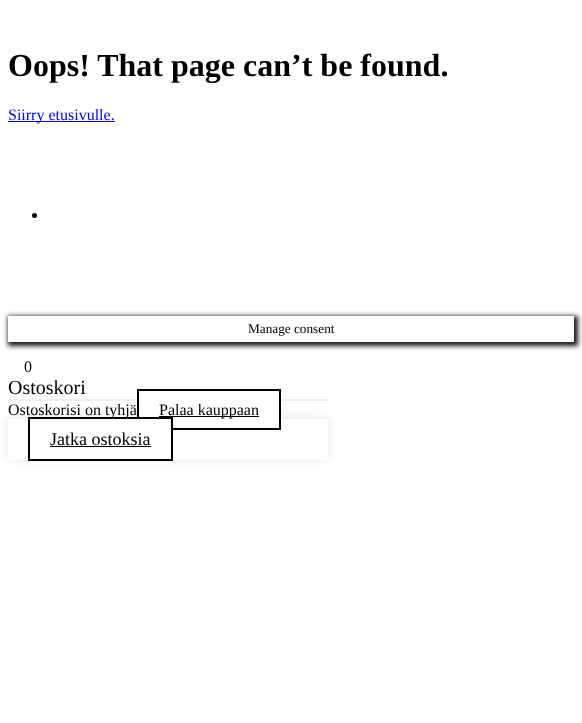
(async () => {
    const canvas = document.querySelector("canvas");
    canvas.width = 582;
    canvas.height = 723;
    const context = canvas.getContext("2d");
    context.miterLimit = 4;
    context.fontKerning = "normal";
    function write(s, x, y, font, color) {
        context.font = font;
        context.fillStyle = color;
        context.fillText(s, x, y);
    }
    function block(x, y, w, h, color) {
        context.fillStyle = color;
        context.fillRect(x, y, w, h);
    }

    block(0, 0, 582, 723, "rgb(255, 255, 255)");
    write("Oops! That page can’t be found.", 8, 76, "bold 32px Liberation Serif", "rgb(0, 0, 0)");
    block(8, 121, 107, 1, "rgb(0, 0, 238)");
    write("Siirry etusivulle.", 8, 120, "16px Liberation Serif", "rgb(0, 0, 238)");
    context.fillStyle = "rgb(0, 0, 0)";
    context.beginPath();
    context.arc(34.5, 215.5, 2.5, 0, Math.PI * 2);
    context.fill();
    context.save();
    context.beginPath();
    context.moveTo(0, 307);
    context.lineTo(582, 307);
    context.lineTo(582, 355);
    context.lineTo(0, 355);
    context.closePath();
    context.moveTo(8, 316);
    context.lineTo(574, 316);
    context.lineTo(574, 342);
    context.lineTo(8, 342);
    context.closePath();
    context.clip("evenodd");
    context.fillStyle = "rgb(22, 22, 22)";
    context.filter = "blur(2.5px)";
    context.beginPath();
    context.rect(8, 316, 570, 30);
    context.fill();
    context.filter = "none";
    context.restore();
    write("Manage consent", 248, 333, "13.25px Liberation Serif", "rgb(0, 0, 0)");
    block(8, 399, 320, 2, "rgb(238, 238, 238)");
    write("0", 24, 372, "16px Liberation Serif", "rgb(0, 0, 0)");
    write("Ostoskori", 8, 394, "20px Liberation Serif", "rgb(0, 0, 0)");
    context.save();
    context.beginPath();
    context.moveTo(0, 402);
    context.lineTo(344, 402);
    context.lineTo(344, 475);
    context.lineTo(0, 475);
    context.closePath();
    context.moveTo(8, 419);
    context.lineTo(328, 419);
    context.lineTo(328, 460);
    context.lineTo(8, 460);
    context.closePath();
    context.clip("evenodd");
    context.fillStyle = "rgba(0, 0, 0, 0.1)";
    context.filter = "blur(5px)";
    context.beginPath();
    context.rect(8, 418, 320, 41);
    context.fill();
    context.filter = "none";
    context.restore();
    write("Ostoskorisi on tyhjä", 8, 415, "16px Liberation Serif", "rgb(0, 0, 0)");
    block(139, 399, 140, 20, "rgb(255, 255, 255)");
    context.strokeStyle = "rgb(0, 0, 0)";
    context.lineWidth = 2;
    context.strokeRect(138, 390, 142, 39);
    block(159, 416, 100, 1, "rgb(0, 0, 0)");
    write("Palaa kauppaan", 159, 415, "16px Liberation Serif", "rgb(0, 0, 0)");
    block(137, 419, 34, 11, "rgb(255, 255, 255)");
    context.strokeRect(29, 418, 143, 42);
    write("Jatka ostoksia", 50, 445, "18px Liberation Serif", "rgb(0, 0, 0)");
    block(50, 446, 101, 1, "rgb(0, 0, 0)");
})();
